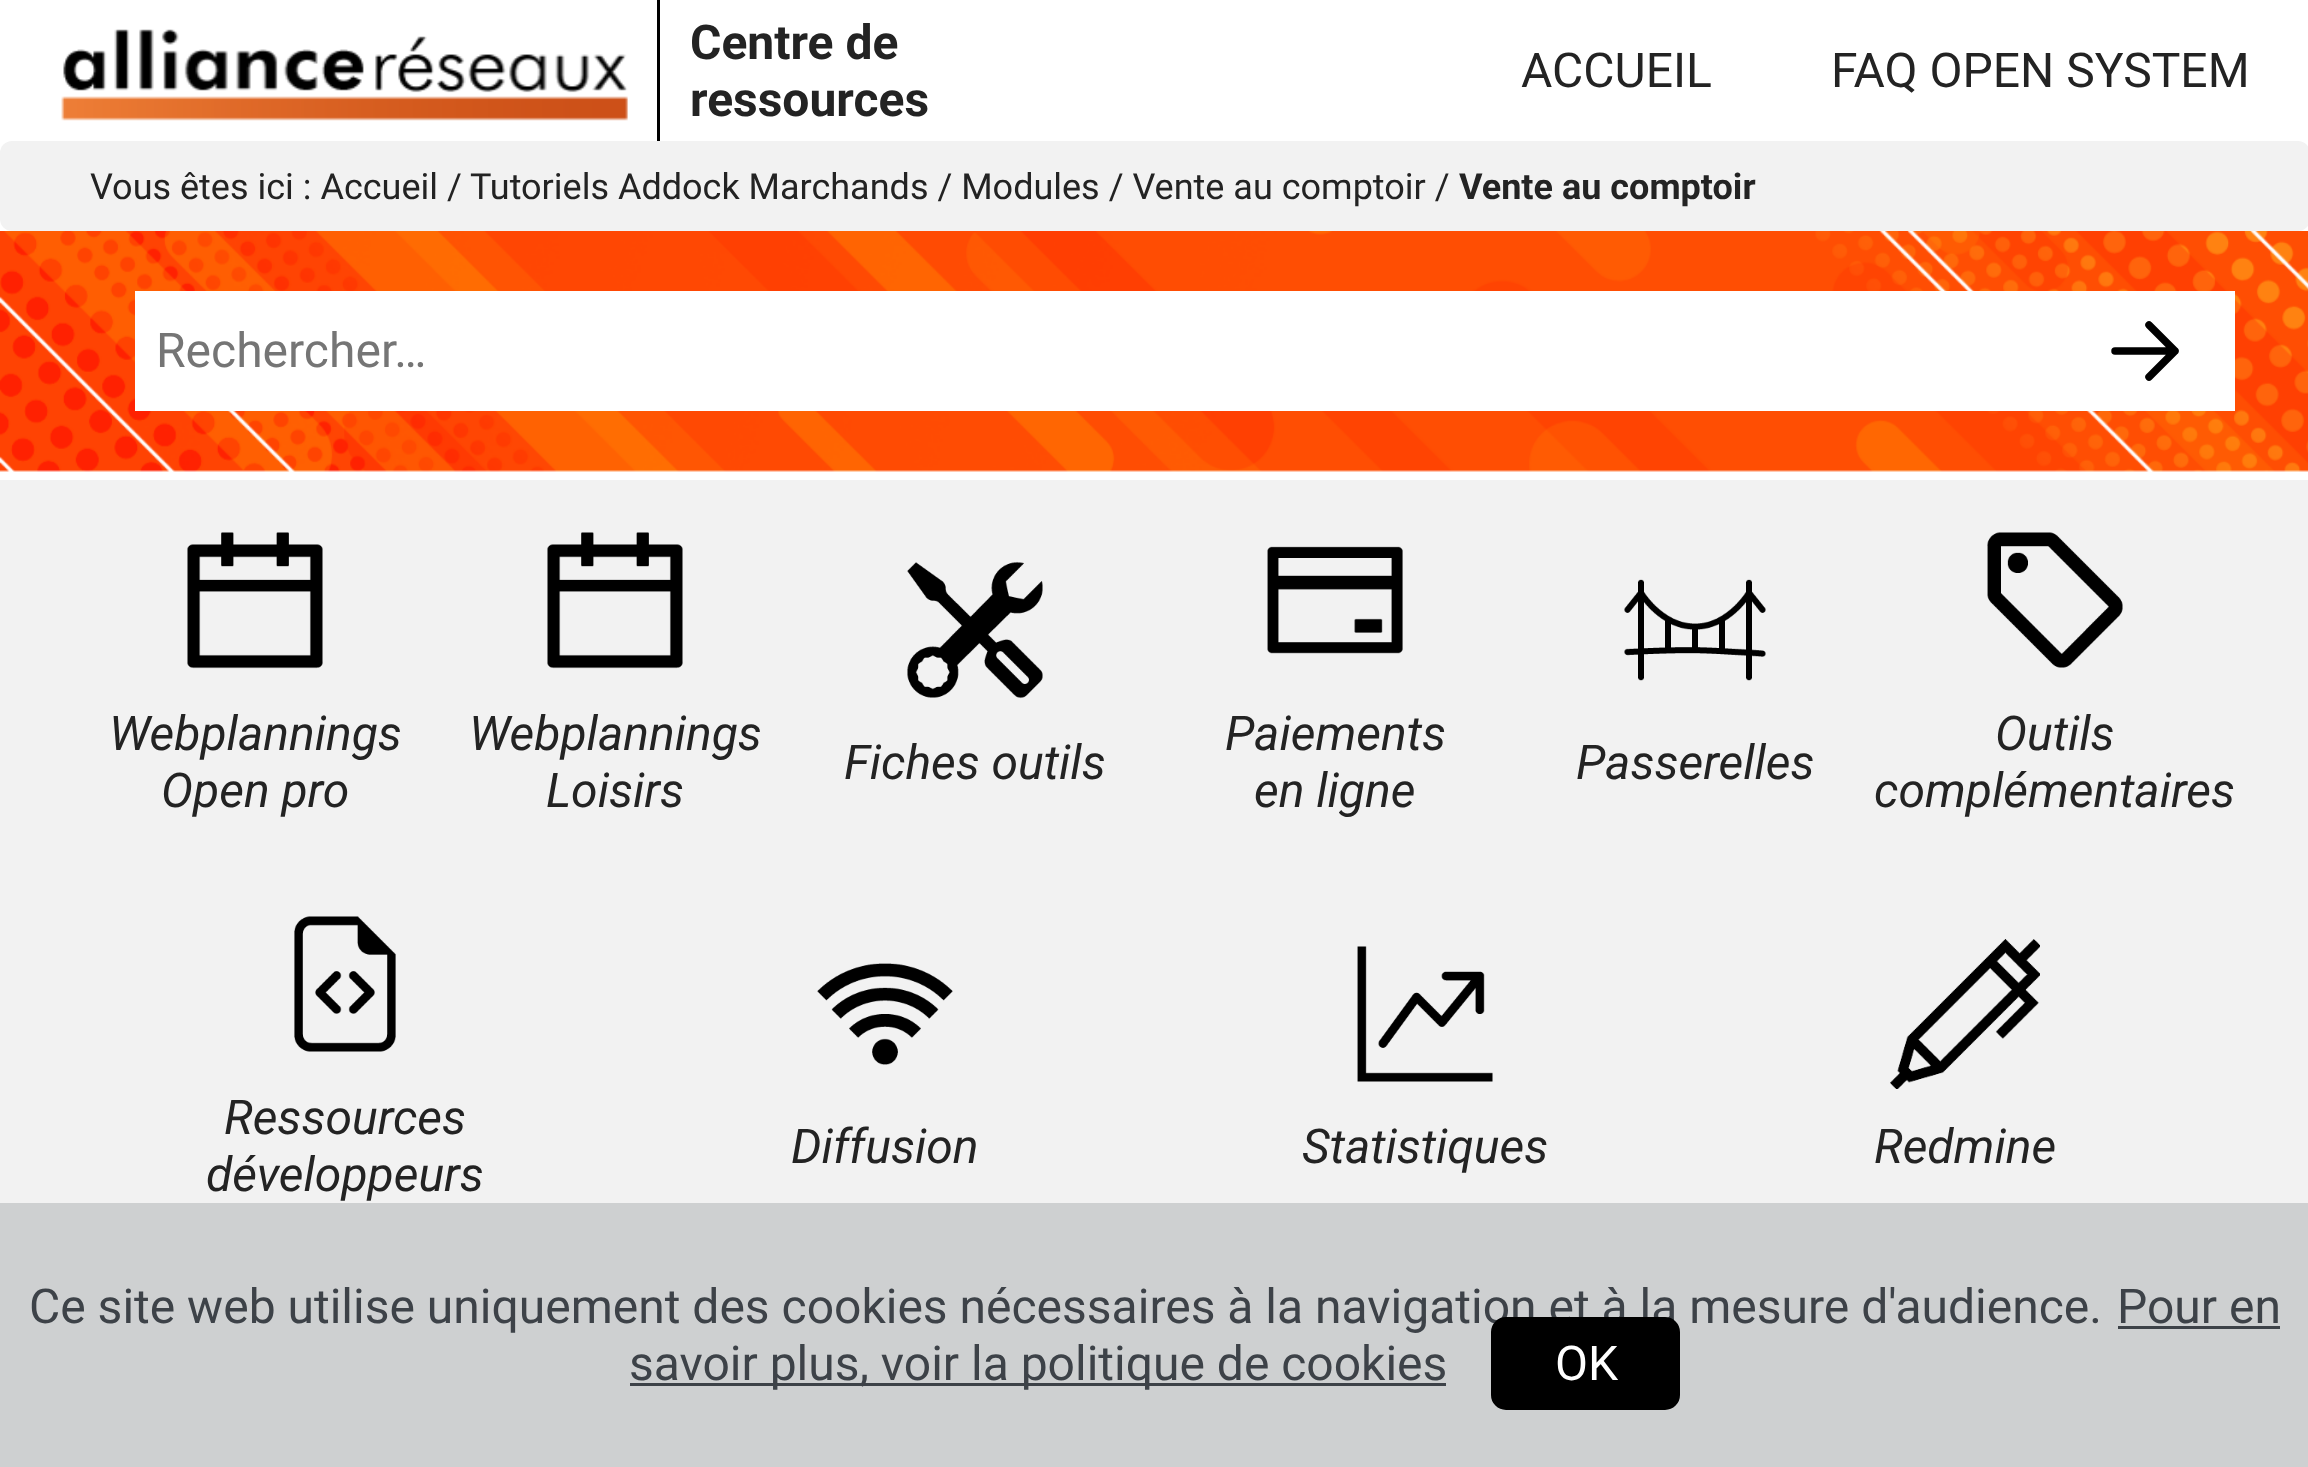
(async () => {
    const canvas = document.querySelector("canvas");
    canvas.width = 2308;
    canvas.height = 1467;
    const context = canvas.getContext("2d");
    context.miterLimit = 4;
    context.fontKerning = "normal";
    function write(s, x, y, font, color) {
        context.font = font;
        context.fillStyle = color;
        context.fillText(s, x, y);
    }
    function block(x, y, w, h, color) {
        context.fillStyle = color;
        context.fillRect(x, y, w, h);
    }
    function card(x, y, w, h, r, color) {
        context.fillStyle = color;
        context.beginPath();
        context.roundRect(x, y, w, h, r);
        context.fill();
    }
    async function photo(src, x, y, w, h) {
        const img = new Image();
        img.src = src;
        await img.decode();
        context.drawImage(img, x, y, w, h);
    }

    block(0, 0, 2308, 1467, "rgb(255, 255, 255)");
    block(657, 0, 3, 141, "rgb(0, 0, 0)");
    await photo("media/1.png", 61, 29, 567, 92);
    write("Centre de", 690, 59, "bold 48px Roboto", "rgb(35, 35, 35)");
    write("ressources", 690, 116, "bold 48px Roboto", "rgb(35, 35, 35)");
    write("ACCUEIL", 1521, 87, "48px Roboto", "rgb(35, 35, 35)");
    write("FAQ OPEN SYSTEM", 1831, 87, "48px Roboto", "rgb(35, 35, 35)");
    card(0, 141, 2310, 90, 12, "rgb(242, 242, 242)");
    write("Vous êtes ici : Accueil /", 90, 199, "36px Roboto", "rgb(35, 35, 35)");
    write("Tutoriels Addock Marchands / Modules / Vente au comptoir /", 470, 199, "36px Roboto", "rgb(35, 35, 35)");
    write("Vente au comptoir", 1459, 199, "bold 36px Roboto", "rgb(35, 35, 35)");
    await photo("media/2.png", 0, 231, 2308, 241);
    block(135, 291, 2100, 120, "rgb(255, 255, 255)");
    write("Rechercher…", 156, 367, "48px Roboto", "rgb(117, 117, 117)");
    context.beginPath();
    context.moveTo(2115, 351);
    context.lineTo(2175, 351);
    context.moveTo(2149, 325);
    context.lineTo(2175, 351);
    context.lineTo(2149, 377);
    context.strokeStyle = "rgb(0, 0, 0)";
    context.lineWidth = 7.5;
    context.lineCap = "round";
    context.lineJoin = "round";
    context.stroke();
    block(0, 480, 2308, 723, "rgb(242, 242, 242)");
    await photo("media/3.png", 187, 532, 136, 137);
    write("Webplannings", 109, 750, "italic 48px Roboto", "rgb(35, 35, 35)");
    write("Open pro", 161, 807, "italic 48px Roboto", "rgb(35, 35, 35)");
    await photo("media/3.png", 547, 532, 136, 137);
    write("Webplannings", 469, 750, "italic 48px Roboto", "rgb(35, 35, 35)");
    write("Loisirs", 546, 807, "italic 48px Roboto", "rgb(35, 35, 35)");
    await photo("media/4.png", 907, 561, 136, 138);
    write("Fiches outils", 844, 779, "italic 48px Roboto", "rgb(35, 35, 35)");
    await photo("media/5.png", 1267, 546, 136, 108);
    write("Paiements", 1225, 750, "italic 48px Roboto", "rgb(35, 35, 35)");
    write("en ligne", 1254, 807, "italic 48px Roboto", "rgb(35, 35, 35)");
    await photo("media/6.png", 1624, 579, 142, 102);
    write("Passerelles", 1576, 779, "italic 48px Roboto", "rgb(35, 35, 35)");
    await photo("media/7.png", 1987, 532, 136, 136);
    write("Outils", 1995, 750, "italic 48px Roboto", "rgb(35, 35, 35)");
    write("complémentaires", 1874, 807, "italic 48px Roboto", "rgb(35, 35, 35)");
    await photo("media/8.png", 294, 916, 102, 136);
    write("Ressources", 224, 1134, "italic 48px Roboto", "rgb(35, 35, 35)");
    write("développeurs", 206, 1191, "italic 48px Roboto", "rgb(35, 35, 35)");
    await photo("media/9.png", 817, 963, 136, 102);
    write("Diffusion", 791, 1163, "italic 48px Roboto", "rgb(35, 35, 35)");
    await photo("media/10.png", 1357, 946, 136, 136);
    write("Statistiques", 1302, 1163, "italic 48px Roboto", "rgb(35, 35, 35)");
    await photo("media/11.png", 1890, 939, 150, 150);
    write("Redmine", 1874, 1163, "italic 48px Roboto", "rgb(35, 35, 35)");
    block(0, 1203, 2308, 264, "rgb(206, 208, 209)");
    write("Ce site web utilise uniquement des cookies nécessaires à la navigation et à la mesure d'audience.", 29, 1323, "48px Roboto", "rgb(61, 66, 72)");
    write("Pour en", 2117, 1323, "48px Roboto", "rgb(61, 66, 72)");
    block(2118, 1326, 162, 3, "rgb(61, 66, 72)");
    block(630, 1383, 816, 3, "rgb(61, 66, 72)");
    write("savoir plus, voir la politique de cookies", 629, 1380, "48px Roboto", "rgb(61, 66, 72)");
    context.fillStyle = "rgb(0, 0, 0)";
    context.beginPath();
    context.roundRect(1492.5, 1318.5, 186, 90, 13.5);
    context.fill();
    context.lineWidth = 3;
    context.lineJoin = "miter";
    context.stroke();
    write("OK", 1555, 1380, "48px Roboto", "rgb(255, 255, 255)");
})();
